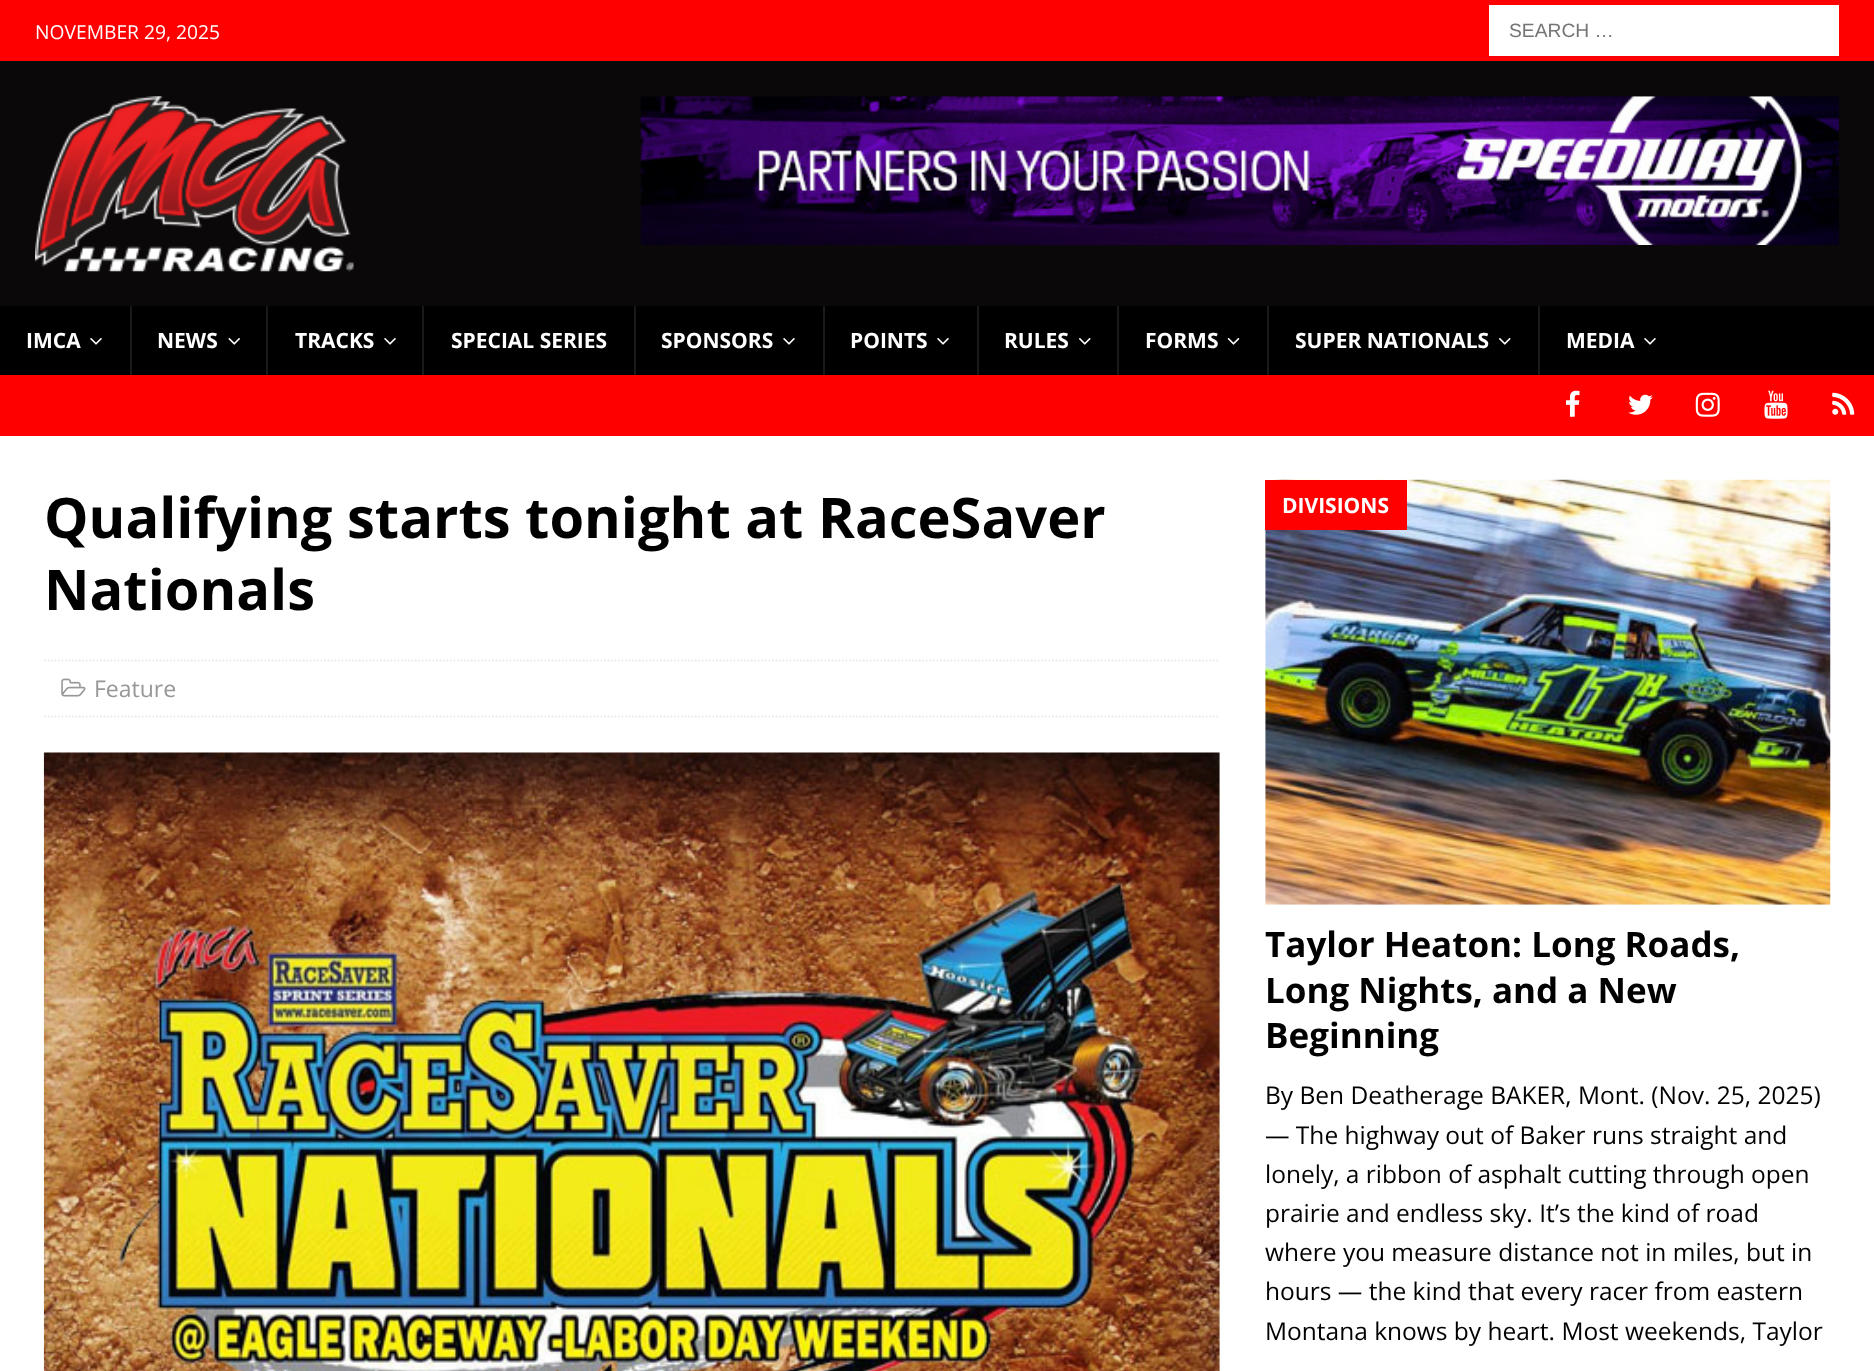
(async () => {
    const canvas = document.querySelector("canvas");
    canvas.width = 1874;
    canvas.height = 1371;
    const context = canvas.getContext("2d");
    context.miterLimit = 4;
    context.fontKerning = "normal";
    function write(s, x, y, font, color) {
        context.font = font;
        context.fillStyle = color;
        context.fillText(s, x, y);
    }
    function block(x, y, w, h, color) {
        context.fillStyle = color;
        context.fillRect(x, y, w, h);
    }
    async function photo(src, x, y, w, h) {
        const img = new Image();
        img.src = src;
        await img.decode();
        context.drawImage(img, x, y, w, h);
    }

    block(0, 0, 1874, 1371, "rgb(255, 0, 0)");
    write("NOVEMBER 29, 2025", 35, 39, "19.25px Open Sans", "rgb(255, 255, 255)");
    block(1489, 5, 350, 51, "rgb(255, 255, 255)");
    write("SEARCH …", 1509, 37, "19.25px Liberation Sans", "rgb(117, 117, 117)");
    block(0, 61, 1874, 245, "rgb(10, 8, 8)");
    await photo("media/1.png", 35, 96, 319, 176);
    await photo("media/2.png", 640, 96, 1200, 149);
    block(0, 306, 1874, 69, "rgb(0, 0, 0)");
    write("IMCA", 26, 348, "bold 21px Open Sans", "rgb(255, 255, 255)");
    await photo("media/3.png", 90, 338, 12, 7);
    block(130, 306, 2, 69, "rgb(26, 26, 26)");
    write("NEWS", 157, 348, "bold 21px Open Sans", "rgb(255, 255, 255)");
    await photo("media/4.png", 228, 338, 12, 7);
    block(266, 306, 2, 69, "rgb(26, 26, 26)");
    write("TRACKS", 295, 348, "bold 21px Open Sans", "rgb(255, 255, 255)");
    await photo("media/3.png", 384, 338, 12, 7);
    block(422, 306, 2, 69, "rgb(26, 26, 26)");
    write("SPECIAL SERIES", 451, 348, "bold 21px Open Sans", "rgb(255, 255, 255)");
    block(634, 306, 2, 69, "rgb(26, 26, 26)");
    write("SPONSORS", 661, 348, "bold 21px Open Sans", "rgb(255, 255, 255)");
    await photo("media/3.png", 783, 338, 12, 7);
    block(823, 306, 2, 69, "rgb(26, 26, 26)");
    write("POINTS", 850, 348, "bold 21px Open Sans", "rgb(255, 255, 255)");
    await photo("media/3.png", 937, 338, 12, 7);
    block(977, 306, 2, 69, "rgb(26, 26, 26)");
    write("RULES", 1004, 348, "bold 21px Open Sans", "rgb(255, 255, 255)");
    await photo("media/5.png", 1079, 338, 12, 7);
    block(1117, 306, 2, 69, "rgb(26, 26, 26)");
    write("FORMS", 1145, 348, "bold 21px Open Sans", "rgb(255, 255, 255)");
    await photo("media/6.png", 1227, 338, 13, 7);
    block(1267, 306, 2, 69, "rgb(26, 26, 26)");
    write("SUPER NATIONALS", 1295, 348, "bold 21px Open Sans", "rgb(255, 255, 255)");
    await photo("media/5.png", 1499, 338, 12, 7);
    block(1538, 306, 2, 69, "rgb(26, 26, 26)");
    write("MEDIA", 1566, 348, "bold 21px Open Sans", "rgb(255, 255, 255)");
    await photo("media/3.png", 1644, 338, 12, 7);
    await photo("media/7.png", 1566, 390, 14, 27);
    await photo("media/8.png", 1628, 394, 25, 21);
    await photo("media/9.png", 1695, 392, 25, 25);
    await photo("media/10.png", 1764, 390, 24, 29);
    await photo("media/11.png", 1832, 392, 23, 23);
    block(0, 436, 1874, 935, "rgb(255, 255, 255)");
    write("Qualifying starts tonight at RaceSaver", 44, 538, "bold 56px Open Sans", "rgb(0, 0, 0)");
    write("Nationals", 44, 610, "bold 56px Open Sans", "rgb(0, 0, 0)");
    context.beginPath();
    context.moveTo(44, 660.5);
    context.lineTo(1220, 660.5);
    context.strokeStyle = "rgb(235, 235, 235)";
    context.lineWidth = 1.8;
    context.setLineDash([1.75, 1.75]);
    context.stroke();
    context.beginPath();
    context.moveTo(44, 716.5);
    context.lineTo(1220, 716.5);
    context.stroke();
    await photo("media/12.png", 61, 678, 25, 19);
    write("Feature", 94, 697, "23px Open Sans", "rgb(151, 151, 151)");
    await photo("media/13.png", 43, 752, 1177, 619);
    await photo("media/14.png", 1265, 479, 566, 426);
    block(1265, 480, 142, 50, "rgb(255, 0, 0)");
    write("DIVISIONS", 1282, 513, "bold 21px Open Sans", "rgb(255, 255, 255)");
    write("Taylor Heaton: Long Roads,", 1265, 957, "bold 35px Open Sans", "rgb(0, 0, 0)");
    write("Long Nights, and a New", 1265, 1003, "bold 35px Open Sans", "rgb(0, 0, 0)");
    write("Beginning", 1265, 1048, "bold 35px Open Sans", "rgb(0, 0, 0)");
    write("By Ben Deatherage BAKER, Mont. (Nov. 25, 2025)", 1265, 1104, "24.5px Open Sans", "rgb(0, 0, 0)");
    write("— The highway out of Baker runs straight and", 1265, 1144, "24.5px Open Sans", "rgb(0, 0, 0)");
    write("lonely, a ribbon of asphalt cutting through open", 1265, 1183, "24.5px Open Sans", "rgb(0, 0, 0)");
    write("prairie and endless sky. It’s the kind of road", 1265, 1222, "24.5px Open Sans", "rgb(0, 0, 0)");
    write("where you measure distance not in miles, but in", 1265, 1261, "24.5px Open Sans", "rgb(0, 0, 0)");
    write("hours — the kind that every racer from eastern", 1265, 1300, "24.5px Open Sans", "rgb(0, 0, 0)");
    write("Montana knows by heart. Most weekends, Taylor", 1265, 1340, "24.5px Open Sans", "rgb(0, 0, 0)");
})();
